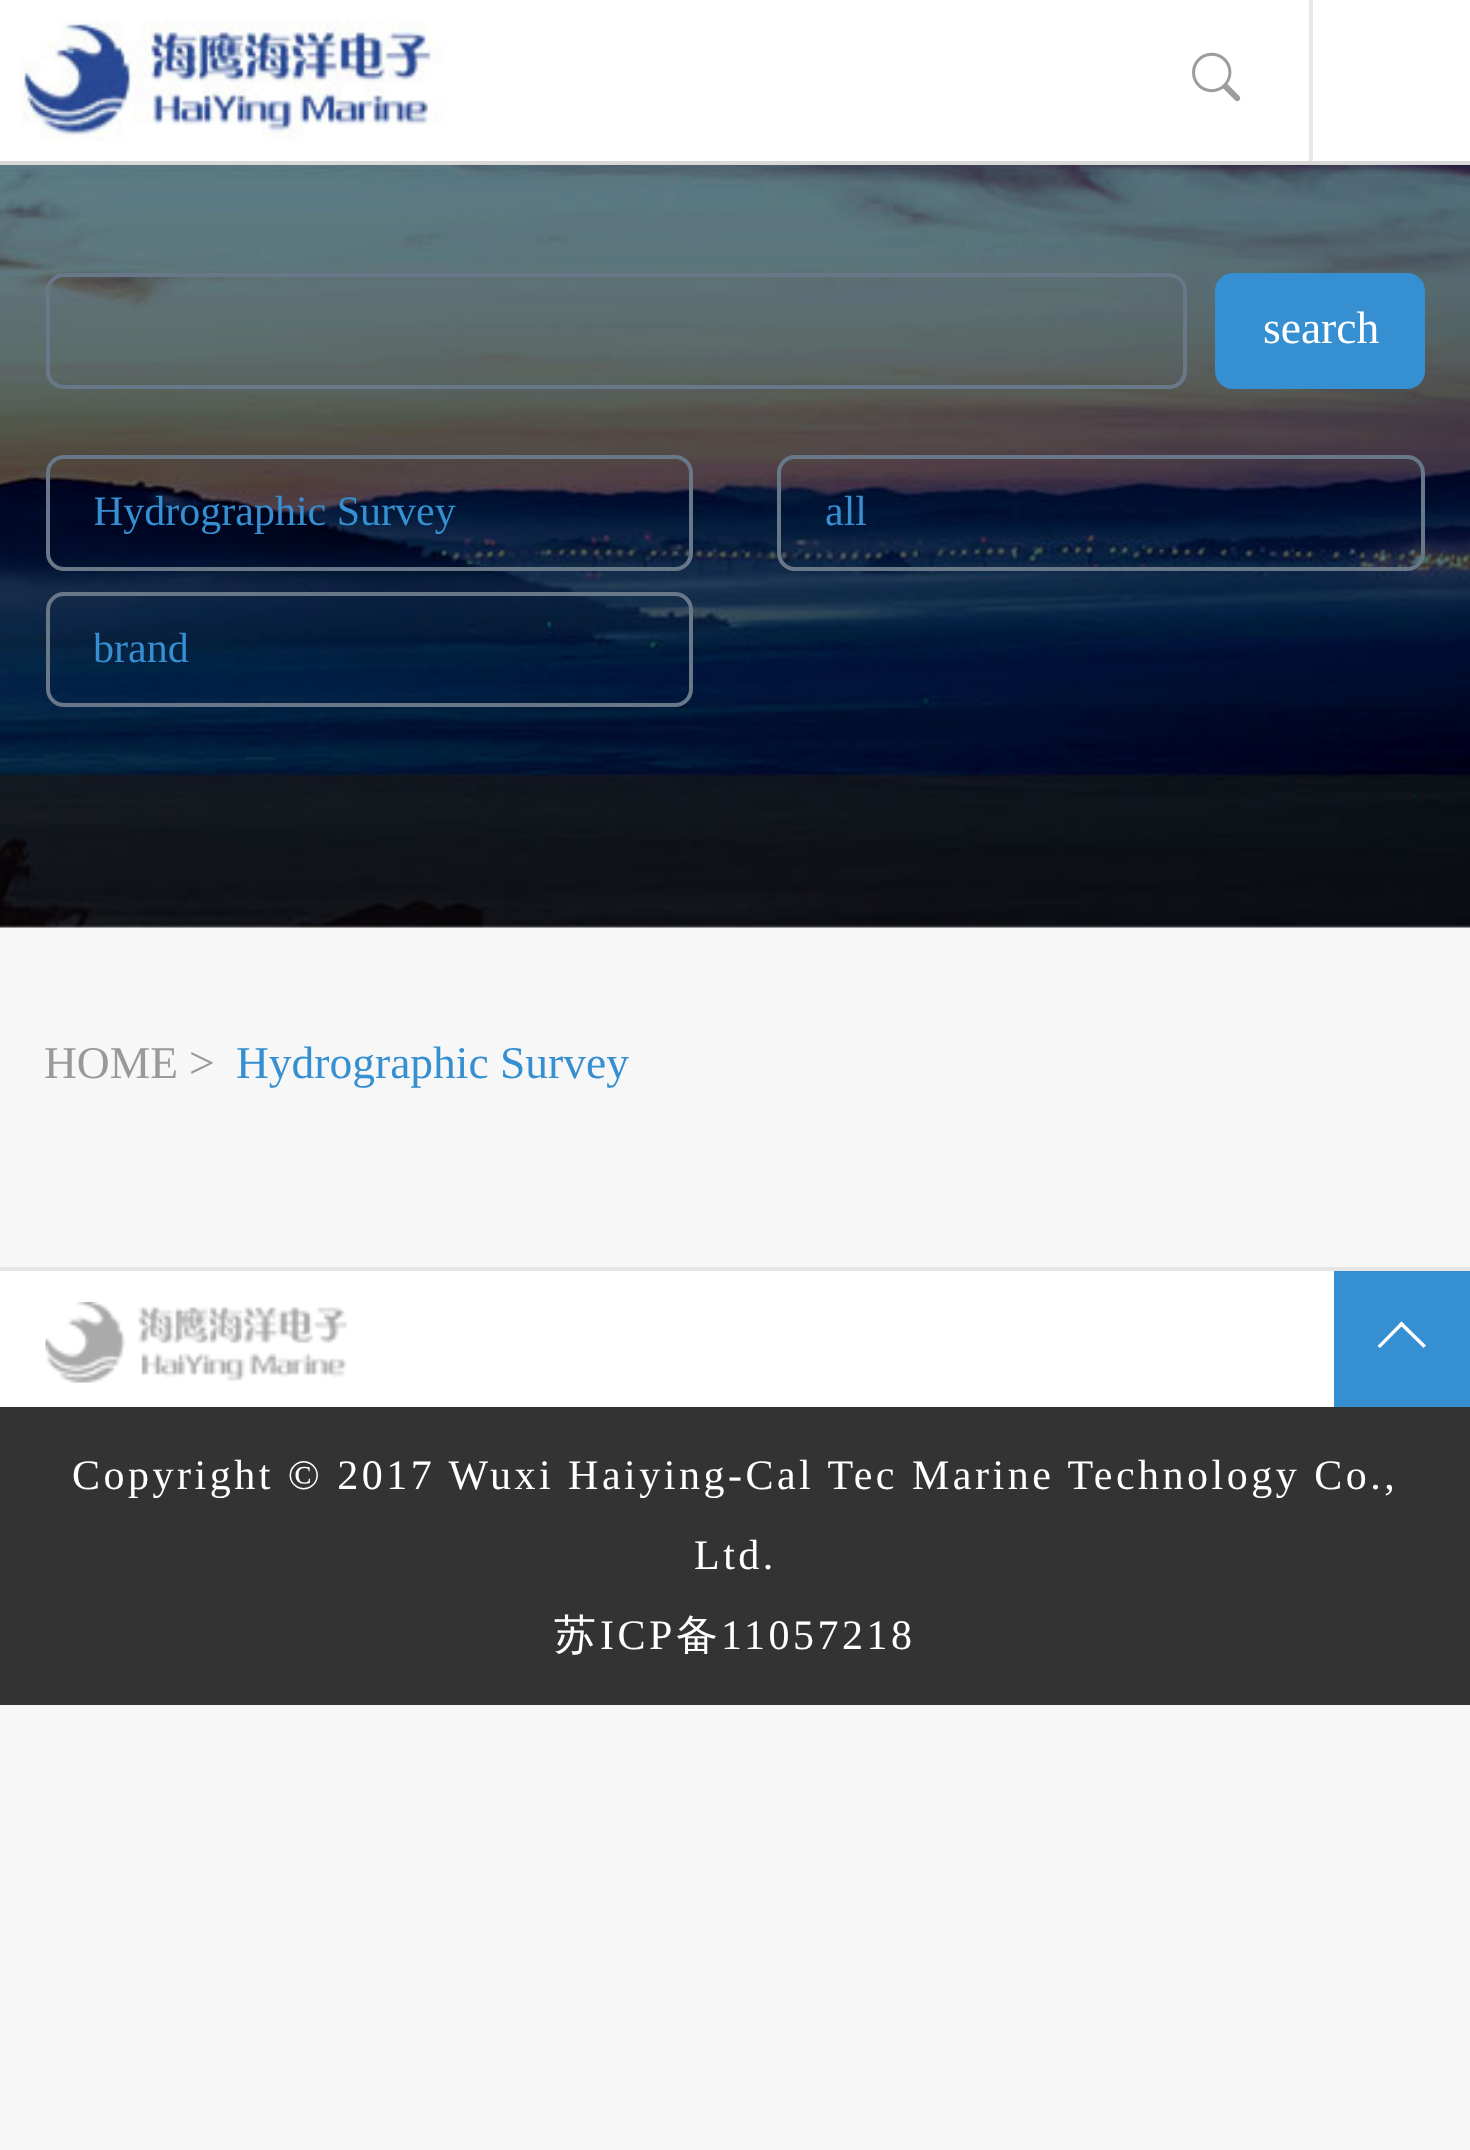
(async () => {
    const canvas = document.querySelector("canvas");
    canvas.width = 1470;
    canvas.height = 2150;
    const context = canvas.getContext("2d");
    context.miterLimit = 4;
    context.fontKerning = "normal";
    function write(s, x, y, font, color) {
        context.font = font;
        context.fillStyle = color;
        context.fillText(s, x, y);
    }
    function block(x, y, w, h, color) {
        context.fillStyle = color;
        context.fillRect(x, y, w, h);
    }
    function card(x, y, w, h, r, color) {
        context.fillStyle = color;
        context.beginPath();
        context.roundRect(x, y, w, h, r);
        context.fill();
    }
    async function photo(src, x, y, w, h) {
        const img = new Image();
        img.src = src;
        await img.decode();
        context.drawImage(img, x, y, w, h);
    }

    block(0, 0, 1470, 2150, "rgb(247, 247, 247)");
    await photo("media/3.png", 0, 165, 1470, 763);
    context.beginPath();
    context.roundRect(48, 275, 1137, 112, 16);
    context.strokeStyle = "rgb(105, 120, 136)";
    context.lineWidth = 4;
    context.stroke();
    card(1215, 273, 210, 116, 18, "rgb(54, 143, 209)");
    context.fillStyle = "rgba(0, 0, 0, 0.1)";
    context.filter = "blur(52.5px)";
    context.beginPath();
    context.rect(0, 0, 1470, 165);
    context.fill();
    context.filter = "none";
    block(0, 0, 1470, 161, "rgb(255, 255, 255)");
    block(0, 161, 1470, 4, "rgb(216, 216, 216)");
    await photo("media/1.png", 20, 20, 425, 122);
    await photo("media/2.png", 1192, 52, 49, 50);
    block(1309, 0, 4, 161, "rgb(232, 232, 232)");
    write("search", 1263, 343, "45.5px Liberation Serif", "rgb(255, 255, 255)");
    context.beginPath();
    context.roundRect(48, 457, 643, 112, 16);
    context.stroke();
    context.save();
    context.beginPath();
    context.rect(95, 459, 595, 108);
    context.clip();
    write("Hydrographic Survey", 93, 525, "42px Liberation Serif", "rgb(54, 143, 209)");
    context.restore();
    context.beginPath();
    context.roundRect(779, 457, 644, 112, 16);
    context.stroke();
    write("all", 825, 525, "42px Liberation Serif", "rgb(54, 143, 209)");
    context.beginPath();
    context.roundRect(48, 594, 643, 111, 16);
    context.stroke();
    context.save();
    context.beginPath();
    context.rect(95, 595, 595, 109);
    context.clip();
    write("brand", 93, 662, "42px Liberation Serif", "rgb(54, 143, 209)");
    context.restore();
    write("HOME", 44, 1078, "45.5px Liberation Serif", "rgb(153, 153, 153)");
    write(">", 189, 1078, "45.5px Liberation Serif", "rgb(153, 153, 153)");
    write("Hydrographic Survey", 236, 1078, "45.5px Liberation Serif", "rgb(54, 143, 209)");
    block(0, 1271, 1334, 136, "rgb(255, 255, 255)");
    block(0, 1267, 1470, 4, "rgb(230, 230, 230)");
    await photo("media/4.png", 45, 1302, 302, 81);
    block(1334, 1271, 136, 136, "rgb(54, 143, 209)");
    context.fillStyle = "rgb(255, 255, 255)";
    context.beginPath();
    context.moveTo(1377.5, 1346);
    context.lineTo(1401.5, 1321.5);
    context.lineTo(1404, 1324);
    context.lineTo(1380, 1348);
    context.closePath();
    context.fill();
    context.beginPath();
    context.moveTo(1399, 1324);
    context.lineTo(1401.5, 1321.5);
    context.lineTo(1426, 1345.5);
    context.lineTo(1423.5, 1348);
    context.closePath();
    context.fill();
    block(0, 1407, 1470, 298, "rgb(51, 51, 51)");
    context.letterSpacing = "3.5px";
    write("Copyright © 2017 Wuxi Haiying-Cal Tec Marine Technology Co.,", 72, 1489, "42px Liberation Serif", "rgb(255, 255, 255)");
    write("Ltd.", 694, 1569, "42px Liberation Serif", "rgb(255, 255, 255)");
    write("苏", 554, 1649, "500 42px WenQuanYi Zen Hei", "rgb(255, 255, 255)");
    write("ICP", 600, 1649, "42px Liberation Serif", "rgb(255, 255, 255)");
    write("备", 676, 1649, "500 42px WenQuanYi Zen Hei", "rgb(255, 255, 255)");
    write("11057218", 721, 1649, "42px Liberation Serif", "rgb(255, 255, 255)");
})();
